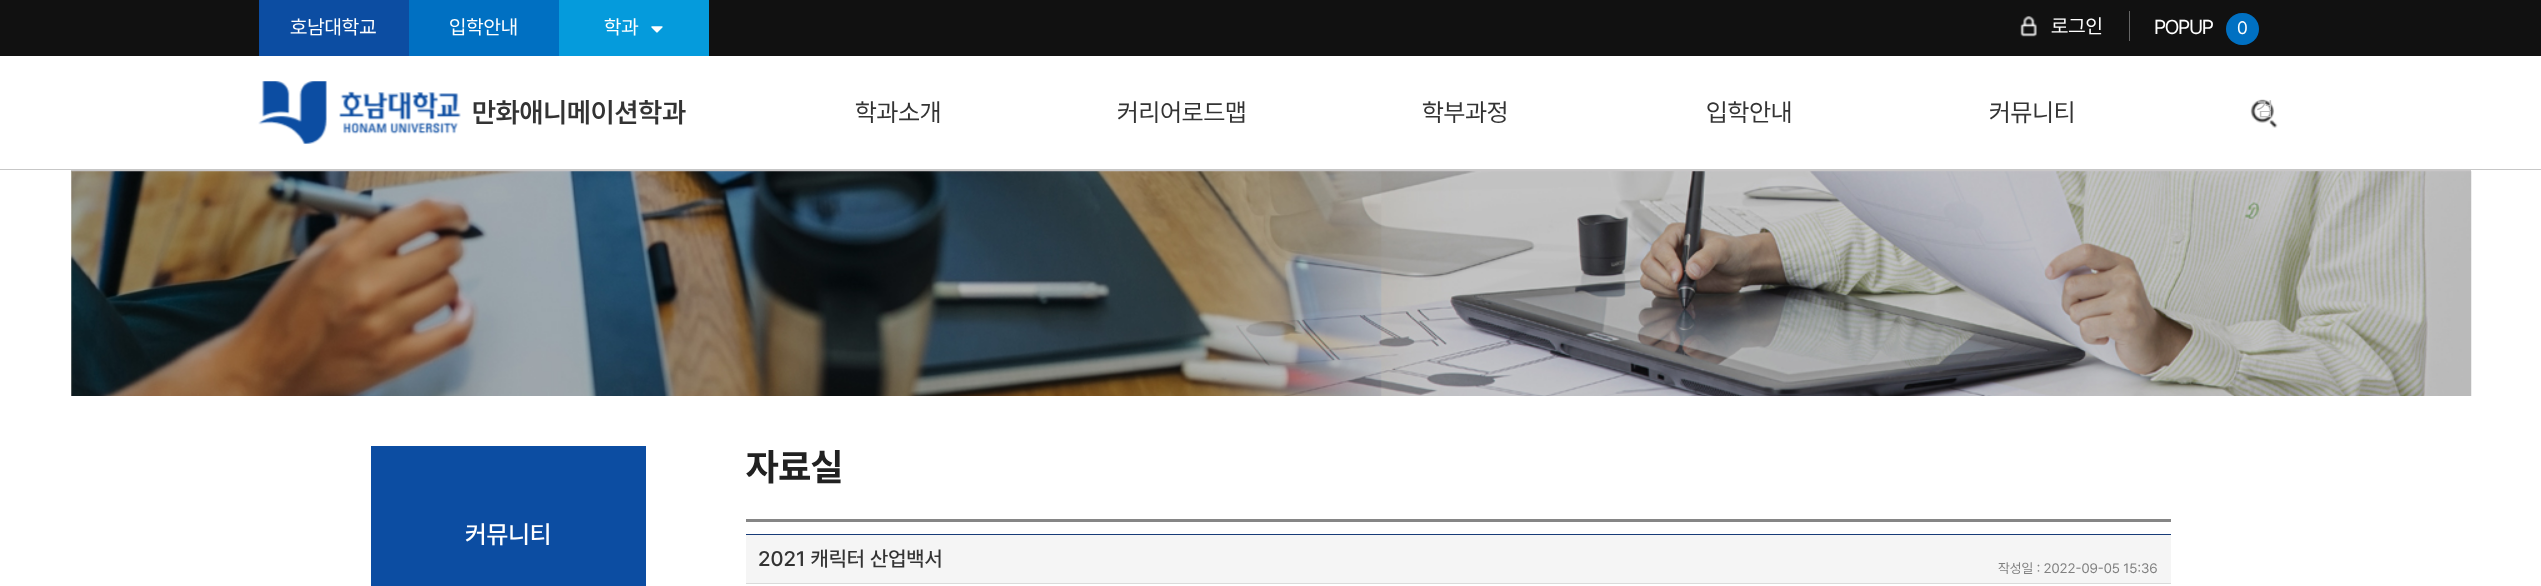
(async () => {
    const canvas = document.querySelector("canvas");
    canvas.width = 2541;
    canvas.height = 586;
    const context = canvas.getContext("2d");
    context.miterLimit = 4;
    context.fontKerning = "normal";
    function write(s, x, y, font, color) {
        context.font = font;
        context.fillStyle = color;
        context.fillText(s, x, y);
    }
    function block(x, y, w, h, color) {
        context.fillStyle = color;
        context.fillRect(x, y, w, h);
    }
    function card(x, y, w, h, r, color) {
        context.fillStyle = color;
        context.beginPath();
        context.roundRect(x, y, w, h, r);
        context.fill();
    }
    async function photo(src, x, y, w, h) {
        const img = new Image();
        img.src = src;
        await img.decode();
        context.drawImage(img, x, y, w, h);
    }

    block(0, 0, 2541, 586, "rgb(255, 255, 255)");
    block(0, 169, 2541, 1, "rgb(199, 199, 199)");
    block(0, 0, 2541, 56, "rgb(17, 17, 17)");
    block(259, 0, 150, 56, "rgb(12, 77, 162)");
    write("호남대학교", 290, 34, "20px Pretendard", "rgb(255, 255, 255)");
    block(409, 0, 150, 56, "rgb(0, 112, 194)");
    write("입학안내", 449, 34, "20px Pretendard", "rgb(255, 255, 255)");
    block(559, 0, 150, 56, "rgb(5, 155, 220)");
    write("학과", 604, 34, "20px Pretendard", "rgb(255, 255, 255)");
    await photo("media/1.png", 651, 26, 12, 7);
    block(2129, 11, 1, 30, "rgb(102, 102, 102)");
    await photo("media/2.png", 2020, 16, 17, 21);
    write("로그인", 2051, 33, "20px Pretendard", "rgb(255, 255, 255)");
    context.letterSpacing = "-1.25px";
    write("POPUP", 2154, 34, "20px Pretendard", "rgb(255, 255, 255)");
    card(2226, 13, 33, 32, 16, "rgb(0, 112, 194)");
    write("0", 2237, 34, "18px Pretendard", "rgb(255, 255, 255)");
    await photo("media/3.png", 258, 81, 203, 63);
    context.letterSpacing = "0px";
    write("만화애니메이션학과", 472, 122, "600 27.5px Pretendard", "rgb(51, 51, 51)");
    write("학과소개", 855, 121, "25px Pretendard", "rgb(51, 51, 51)");
    write("커리어로드맵", 1117, 121, "25px Pretendard", "rgb(51, 51, 51)");
    write("학부과정", 1422, 121, "25px Pretendard", "rgb(51, 51, 51)");
    write("입학안내", 1706, 121, "25px Pretendard", "rgb(51, 51, 51)");
    write("커뮤니티", 1989, 121, "25px Pretendard", "rgb(51, 51, 51)");
    await photo("media/4.png", 2250, 99, 28, 29);
    context.letterSpacing = "-1.25px";
    write("검", 2256, 116, "20px Pretendard", "rgb(188, 188, 188)");
    block(71, 170, 2400, 2, "rgb(201, 199, 200)");
    await photo("media/5.png", 71, 171, 2401, 225);
    block(371, 446, 275, 140, "rgb(12, 77, 162)");
    context.letterSpacing = "0px";
    write("커뮤니티", 465, 543, "500 25px Pretendard", "rgb(255, 255, 255)");
    block(746, 519, 1425, 3, "rgb(134, 134, 134)");
    write("자료실", 746, 480, "bold 37.5px Pretendard", "rgb(33, 33, 33)");
    block(746, 535, 1425, 48, "rgb(245, 245, 245)");
    block(746, 534, 1425, 1, "rgb(23, 59, 120)");
    block(746, 583, 1425, 1, "rgb(218, 218, 218)");
    write("2021 캐릭터 산업백서", 758, 566, "500 21px Pretendard", "rgb(51, 51, 51)");
    write("작성일 : 2022-09-05 15:36", 1998, 573, "13.6px Pretendard", "rgb(128, 128, 128)");
})();
